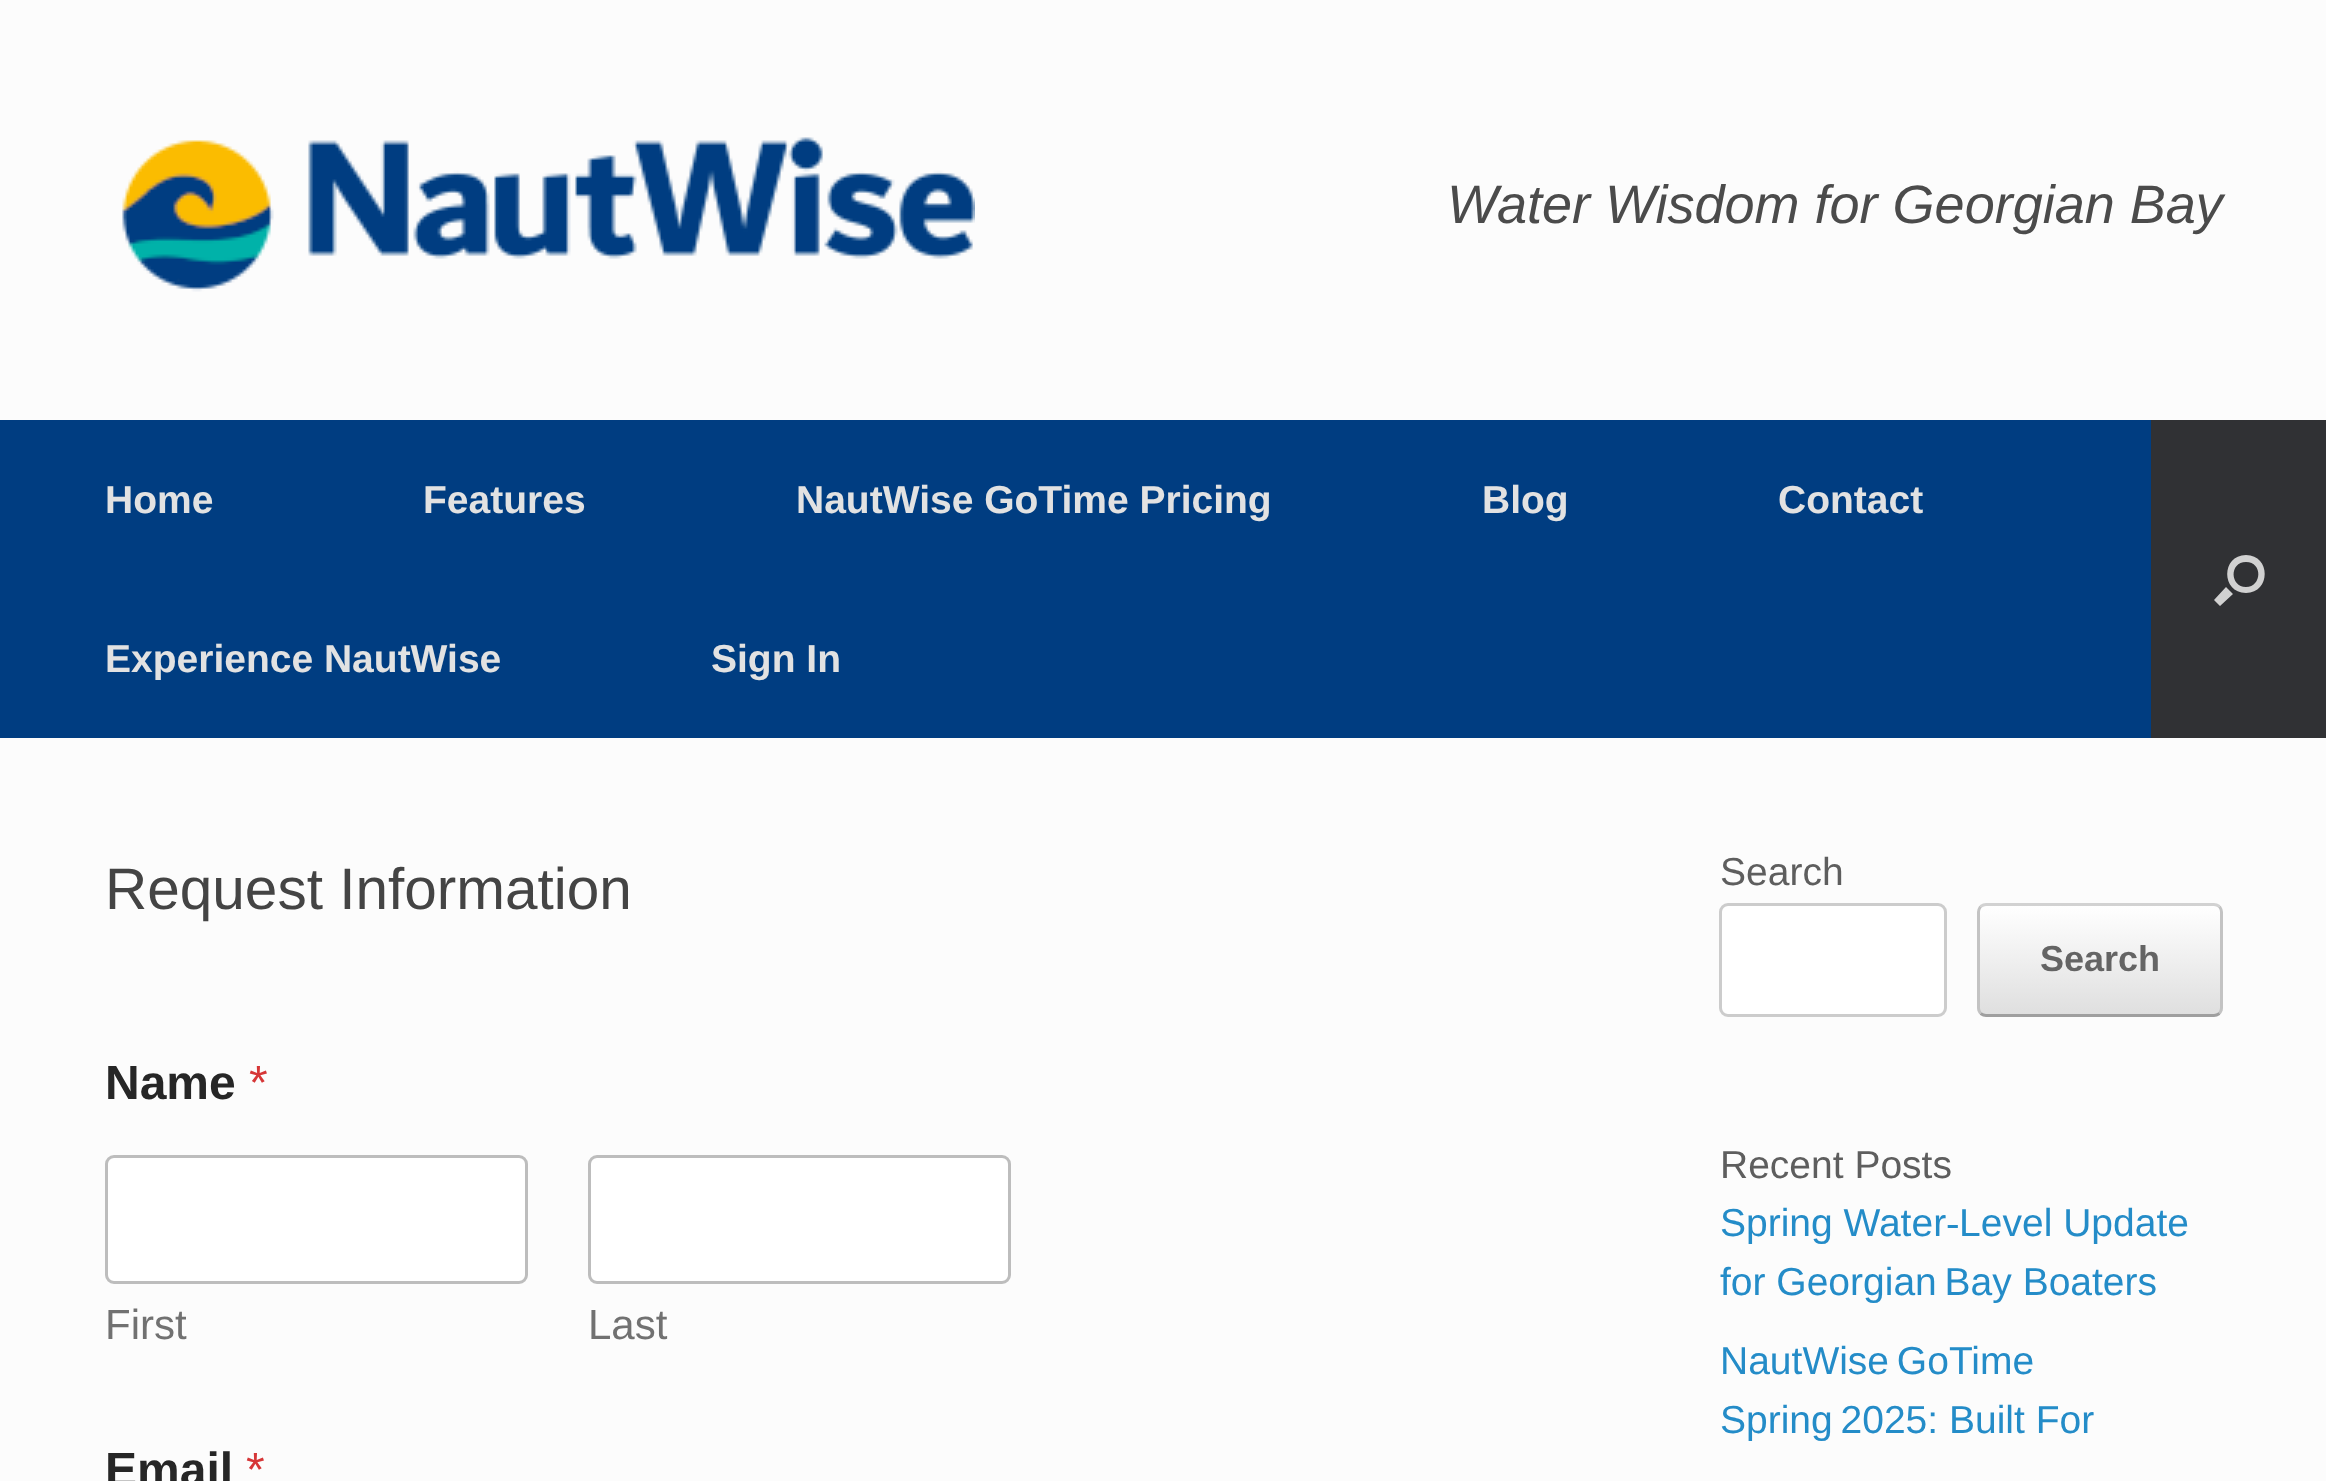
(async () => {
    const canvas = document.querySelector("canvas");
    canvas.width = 2326;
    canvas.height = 1481;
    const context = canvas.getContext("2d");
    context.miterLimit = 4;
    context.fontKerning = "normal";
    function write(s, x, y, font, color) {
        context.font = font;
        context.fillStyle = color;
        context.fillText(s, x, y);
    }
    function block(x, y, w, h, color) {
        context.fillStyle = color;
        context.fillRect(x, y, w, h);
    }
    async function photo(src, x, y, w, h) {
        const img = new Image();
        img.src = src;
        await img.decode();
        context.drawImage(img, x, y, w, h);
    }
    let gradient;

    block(0, 0, 2326, 1481, "rgb(252, 252, 252)");
    await photo("media/1.png", 122, 137, 853, 155);
    write("Water Wisdom for Georgian Bay", 1447, 223, "italic 54px Liberation Sans", "rgb(75, 75, 75)");
    block(0, 420, 2151, 318, "rgb(0, 61, 129)");
    write("Home", 105, 513, "bold 39px Liberation Sans", "rgb(226, 226, 226)");
    write("Features", 423, 513, "bold 39px Liberation Sans", "rgb(226, 226, 226)");
    write("NautWise GoTime Pricing", 796, 513, "bold 39px Liberation Sans", "rgb(226, 226, 226)");
    write("Blog", 1482, 513, "bold 39px Liberation Sans", "rgb(226, 226, 226)");
    write("Contact", 1778, 513, "bold 39px Liberation Sans", "rgb(226, 226, 226)");
    write("Experience NautWise", 105, 672, "bold 39px Liberation Sans", "rgb(226, 226, 226)");
    write("Sign In", 711, 672, "bold 39px Liberation Sans", "rgb(226, 226, 226)");
    block(2151, 420, 175, 318, "rgb(48, 49, 52)");
    context.fillStyle = "rgb(209, 209, 209)";
    context.beginPath();
    context.moveTo(2246, 562);
    context.bezierCurveTo(2263, 562, 2262, 587, 2246, 587);
    context.bezierCurveTo(2230, 587, 2229, 562, 2246, 562);
    context.closePath();
    context.moveTo(2246, 555);
    context.bezierCurveTo(2221, 555, 2221, 593, 2246, 593);
    context.bezierCurveTo(2271, 593, 2271, 555, 2246, 555);
    context.closePath();
    context.moveTo(2226, 587);
    context.lineTo(2233, 594);
    context.lineTo(2220, 606);
    context.lineTo(2214, 600);
    context.closePath();
    context.fill();
    write("Request Information", 105, 909, "58.5px Liberation Sans", "rgb(68, 68, 68)");
    write("Name", 105, 1099, "bold 48px Liberation Sans", "rgb(38, 38, 38)");
    write("*", 249, 1099, "48px Liberation Sans", "rgb(214, 54, 55)");
    context.fillStyle = "rgb(255, 255, 255)";
    context.beginPath();
    context.roundRect(106.5, 1156.5, 420, 126, 7.5);
    context.fill();
    context.strokeStyle = "rgb(189, 189, 189)";
    context.lineWidth = 3;
    context.stroke();
    write("First", 105, 1339, "42px Liberation Sans", "rgb(113, 113, 113)");
    context.fillStyle = "rgb(255, 255, 255)";
    context.beginPath();
    context.roundRect(589.5, 1156.5, 420, 126, 7.5);
    context.fill();
    context.stroke();
    write("Last", 588, 1339, "42px Liberation Sans", "rgb(113, 113, 113)");
    write("Email", 105, 1486, "bold 48px Liberation Sans", "rgb(38, 38, 38)");
    write("*", 246, 1486, "48px Liberation Sans", "rgb(214, 54, 55)");
    write("Search", 1720, 885, "39px Liberation Sans", "rgb(94, 94, 94)");
    context.fillStyle = "rgb(255, 255, 255)";
    context.beginPath();
    context.roundRect(1720.5, 904.5, 225, 111, 7.5);
    context.fill();
    context.strokeStyle = "rgb(204, 204, 204)";
    context.stroke();
    context.save();
    context.beginPath();
    context.roundRect(1977, 903, 246, 114, 9);
    context.clip();
    gradient = context.createLinearGradient(1980, 1014, 1980, 906);
    gradient.addColorStop(0, "rgb(223, 223, 223)");
    gradient.addColorStop(1, "rgb(255, 255, 255)");
    context.fillStyle = gradient;
    context.fillRect(1977, 906, 246, 108);
    context.restore();
    context.beginPath();
    context.moveTo(1980.5, 906.5);
    context.bezierCurveTo(1982, 905.5, 1984, 904.5, 1986, 904.5);
    context.lineTo(2214, 904.5);
    context.bezierCurveTo(2216, 904.5, 2218, 905.5, 2219.5, 906.5);
    context.strokeStyle = "rgb(210, 210, 210)";
    context.stroke();
    context.beginPath();
    context.moveTo(2219.5, 906.5);
    context.bezierCurveTo(2220.5, 908, 2221.5, 910, 2221.5, 912);
    context.lineTo(2221.5, 1008);
    context.bezierCurveTo(2221.5, 1010, 2220.5, 1012, 2219.5, 1013.5);
    context.strokeStyle = "rgb(195, 195, 195)";
    context.stroke();
    context.beginPath();
    context.moveTo(2219.5, 1013.5);
    context.bezierCurveTo(2218, 1014.5, 2216, 1015.5, 2214, 1015.5);
    context.lineTo(1986, 1015.5);
    context.bezierCurveTo(1984, 1015.5, 1982, 1014.5, 1980.5, 1013.5);
    context.strokeStyle = "rgb(159, 159, 159)";
    context.stroke();
    context.beginPath();
    context.moveTo(1980.5, 1013.5);
    context.bezierCurveTo(1979.5, 1012, 1978.5, 1010, 1978.5, 1008);
    context.lineTo(1978.5, 912);
    context.bezierCurveTo(1978.5, 910, 1979.5, 908, 1980.5, 906.5);
    context.strokeStyle = "rgb(195, 195, 195)";
    context.stroke();
    write("Search", 2040, 971, "bold 36px Liberation Sans", "rgb(100, 100, 100)");
    write("Recent Posts", 1720, 1178, "39px Liberation Sans", "rgb(94, 94, 94)");
    write("Spring Water‑Level Update", 1720, 1236, "39px Liberation Sans", "rgb(36, 140, 200)");
    write("for Georgian Bay Boaters", 1720, 1295, "39px Liberation Sans", "rgb(36, 140, 200)");
    write("NautWise GoTime", 1720, 1374, "39px Liberation Sans", "rgb(36, 140, 200)");
    write("Spring 2025: Built For", 1720, 1433, "39px Liberation Sans", "rgb(36, 140, 200)");
})();
